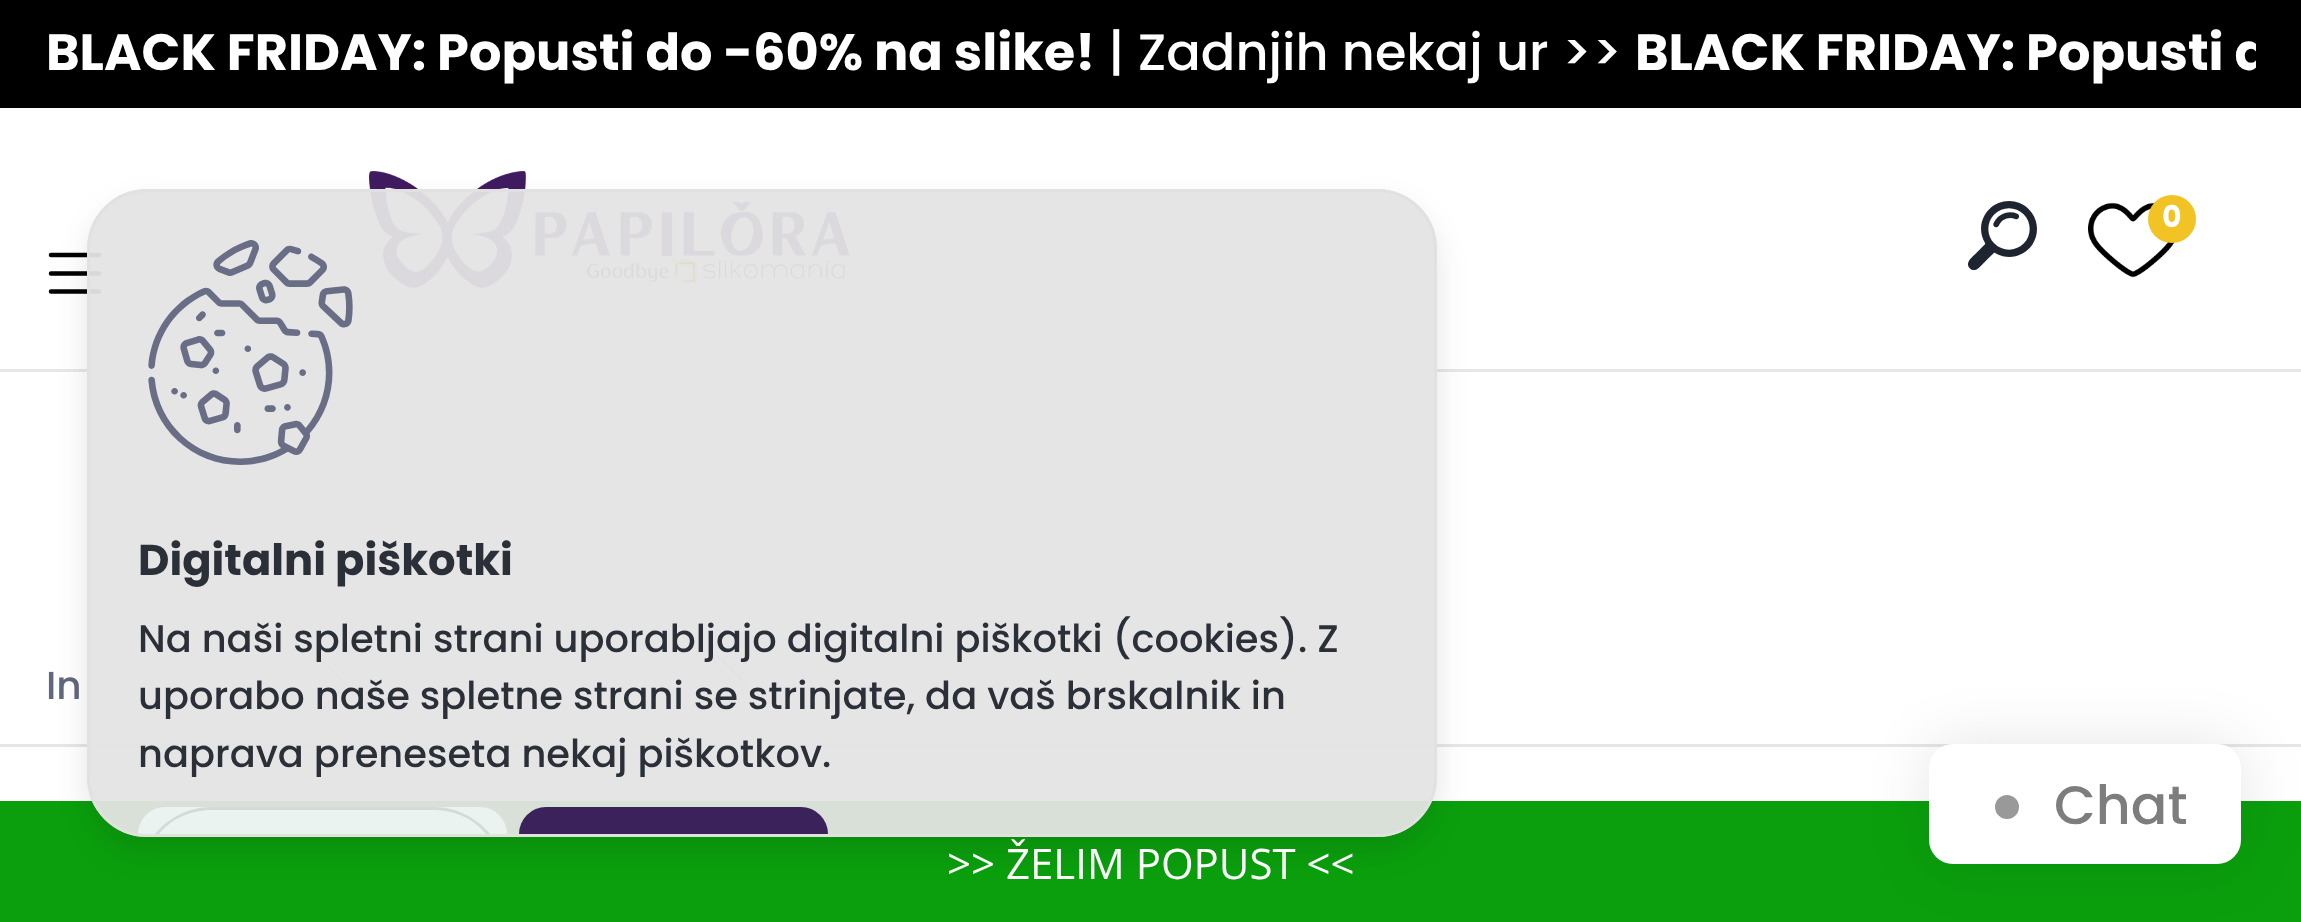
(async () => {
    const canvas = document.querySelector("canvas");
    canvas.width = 2301;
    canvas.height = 922;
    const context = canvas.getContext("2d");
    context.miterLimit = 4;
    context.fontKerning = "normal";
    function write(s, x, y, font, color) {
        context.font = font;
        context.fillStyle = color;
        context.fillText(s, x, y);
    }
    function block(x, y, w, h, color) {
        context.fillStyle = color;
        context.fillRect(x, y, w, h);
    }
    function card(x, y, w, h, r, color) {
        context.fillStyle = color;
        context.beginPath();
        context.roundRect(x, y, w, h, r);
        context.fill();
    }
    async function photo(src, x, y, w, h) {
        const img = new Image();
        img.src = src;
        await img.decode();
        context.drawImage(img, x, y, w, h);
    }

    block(0, 0, 2301, 922, "rgb(255, 255, 255)");
    block(0, 0, 2301, 108, "rgb(0, 0, 0)");
    write("BLACK FRIDAY: Popusti do -60% na slike!", 46, 70, "bold 51px Poppins", "rgb(255, 255, 255)");
    write("| Zadnjih nekaj ur >>", 1108, 70, "500 51px Poppins", "rgb(255, 255, 255)");
    context.save();
    context.beginPath();
    context.rect(45, 15, 2211, 78);
    context.clip();
    write("BLACK FRIDAY: Popusti d", 1635, 70, "bold 51px Poppins", "rgb(255, 255, 255)");
    context.restore();
    context.beginPath();
    context.moveTo(51, 291.5);
    context.lineTo(99, 291.5);
    context.moveTo(51, 273.5);
    context.lineTo(99, 273.5);
    context.moveTo(51, 255);
    context.lineTo(99, 255);
    context.strokeStyle = "rgb(0, 0, 0)";
    context.lineWidth = 4.5;
    context.lineCap = "round";
    context.lineJoin = "round";
    context.stroke();
    block(0, 369, 2301, 3, "rgb(231, 231, 231)");
    await photo("media/1.png", 369, 171, 480, 117);
    await photo("media/2.png", 1968, 201, 69, 69);
    await photo("media/3.png", 2088, 202, 87, 76);
    context.fillStyle = "rgb(241, 195, 37)";
    context.beginPath();
    context.arc(2172, 219, 24, 0, Math.PI * 2);
    context.fill();
    write("0", 2162, 227, "bold 30px Poppins", "rgb(255, 255, 255)");
    block(0, 744, 2301, 3, "rgb(230, 230, 230)");
    write("In", 46, 699, "500 39px Poppins", "rgb(98, 103, 128)");
    context.fillStyle = "rgb(195, 195, 195)";
    context.beginPath();
    context.moveTo(316.5, 657);
    context.lineTo(319.5, 657);
    context.lineTo(348, 685.5);
    context.lineTo(345, 685.5);
    context.closePath();
    context.fill();
    context.beginPath();
    context.moveTo(345, 685.5);
    context.lineTo(348, 685.5);
    context.lineTo(319.5, 714);
    context.lineTo(316.5, 714);
    context.closePath();
    context.fill();
    context.beginPath();
    context.moveTo(717, 657);
    context.lineTo(720, 657);
    context.lineTo(748.5, 685.5);
    context.lineTo(745.5, 685.5);
    context.closePath();
    context.fill();
    context.beginPath();
    context.moveTo(745.5, 685.5);
    context.lineTo(748.5, 685.5);
    context.lineTo(720, 714);
    context.lineTo(717, 714);
    context.closePath();
    context.fill();
    block(0, 801, 2301, 121, "rgb(11, 159, 13)");
    context.save();
    context.beginPath();
    context.moveTo(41, 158);
    context.lineTo(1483, 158);
    context.lineTo(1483, 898);
    context.lineTo(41, 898);
    context.closePath();
    context.moveTo(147, 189);
    context.lineTo(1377, 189);
    context.bezierCurveTo(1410, 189, 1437, 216, 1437, 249);
    context.lineTo(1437, 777);
    context.bezierCurveTo(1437, 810, 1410, 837, 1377, 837);
    context.lineTo(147, 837);
    context.bezierCurveTo(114, 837, 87, 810, 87, 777);
    context.lineTo(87, 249);
    context.bezierCurveTo(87, 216, 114, 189, 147, 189);
    context.closePath();
    context.clip("evenodd");
    context.fillStyle = "rgba(0, 0, 0, 0.1)";
    context.filter = "blur(15px)";
    context.beginPath();
    context.roundRect(87, 204, 1350, 648, 60);
    context.fill();
    context.filter = "none";
    context.restore();
    card(87, 189, 1350, 648, 60, "rgba(228, 228, 228, 0.95)");
    context.beginPath();
    context.roundRect(88.5, 190.5, 1347, 645, 58.5);
    context.strokeStyle = "rgba(224, 224, 224, 0.95)";
    context.lineWidth = 3;
    context.lineJoin = "miter";
    context.stroke();
    await photo("media/4.png", 148, 240, 205, 225);
    write("Digitalni piškotki", 138, 575, "bold 43.25px Poppins", "rgb(42, 47, 56)");
    write("Na naši spletni strani uporabljajo digitalni piškotki (cookies). Z", 138, 652, "500 38.4px Poppins", "rgb(42, 47, 56)");
    write("uporabo naše spletne strani se strinjate, da vaš brskalnik in", 138, 709, "500 38.4px Poppins", "rgb(42, 47, 56)");
    write("naprava preneseta nekaj piškotkov.", 138, 767, "500 38.4px Poppins", "rgb(42, 47, 56)");
    context.save();
    context.beginPath();
    context.roundRect(90, 192, 1344, 642, 57);
    context.clip();
    context.fillStyle = "rgb(234, 243, 240)";
    context.beginPath();
    context.roundRect(138, 807, 369, 27, [73.5, 73.5, 0, 0]);
    context.fill();
    context.restore();
    context.fillStyle = "rgba(1, 8, 1, 0.1)";
    context.beginPath();
    context.moveTo(212, 807);
    context.bezierCurveTo(189, 807, 168, 818, 155, 834);
    context.lineTo(159, 834);
    context.bezierCurveTo(171, 819, 190, 810, 212, 810);
    context.lineTo(434, 810);
    context.bezierCurveTo(455, 810, 474, 819, 486, 834);
    context.lineTo(490, 834);
    context.bezierCurveTo(477, 818, 456, 807, 434, 807);
    context.closePath();
    context.fill();
    context.fillStyle = "rgb(59, 34, 91)";
    context.beginPath();
    context.roundRect(519, 807, 309, 27, [70.5, 70.5, 0, 0]);
    context.fill();
    context.fillStyle = "rgba(0, 0, 0, 0.1)";
    context.filter = "blur(30px)";
    context.beginPath();
    context.roundRect(1929, 744, 312, 120, 24);
    context.fill();
    context.filter = "none";
    card(1929, 744, 312, 120, 24, "rgb(255, 255, 255)");
    context.fillStyle = "rgb(153, 153, 153)";
    context.beginPath();
    context.arc(2007, 807, 18, 0, Math.PI * 2);
    context.fill();
    context.strokeStyle = "rgb(255, 255, 255)";
    context.lineWidth = 12;
    context.stroke();
    write("Chat", 2054, 824, "500 54px Poppins", "rgb(125, 125, 125)");
    write(">> ŽELIM POPUST <<", 947, 879, "42px Open Sans", "rgb(255, 255, 255)");
})();
